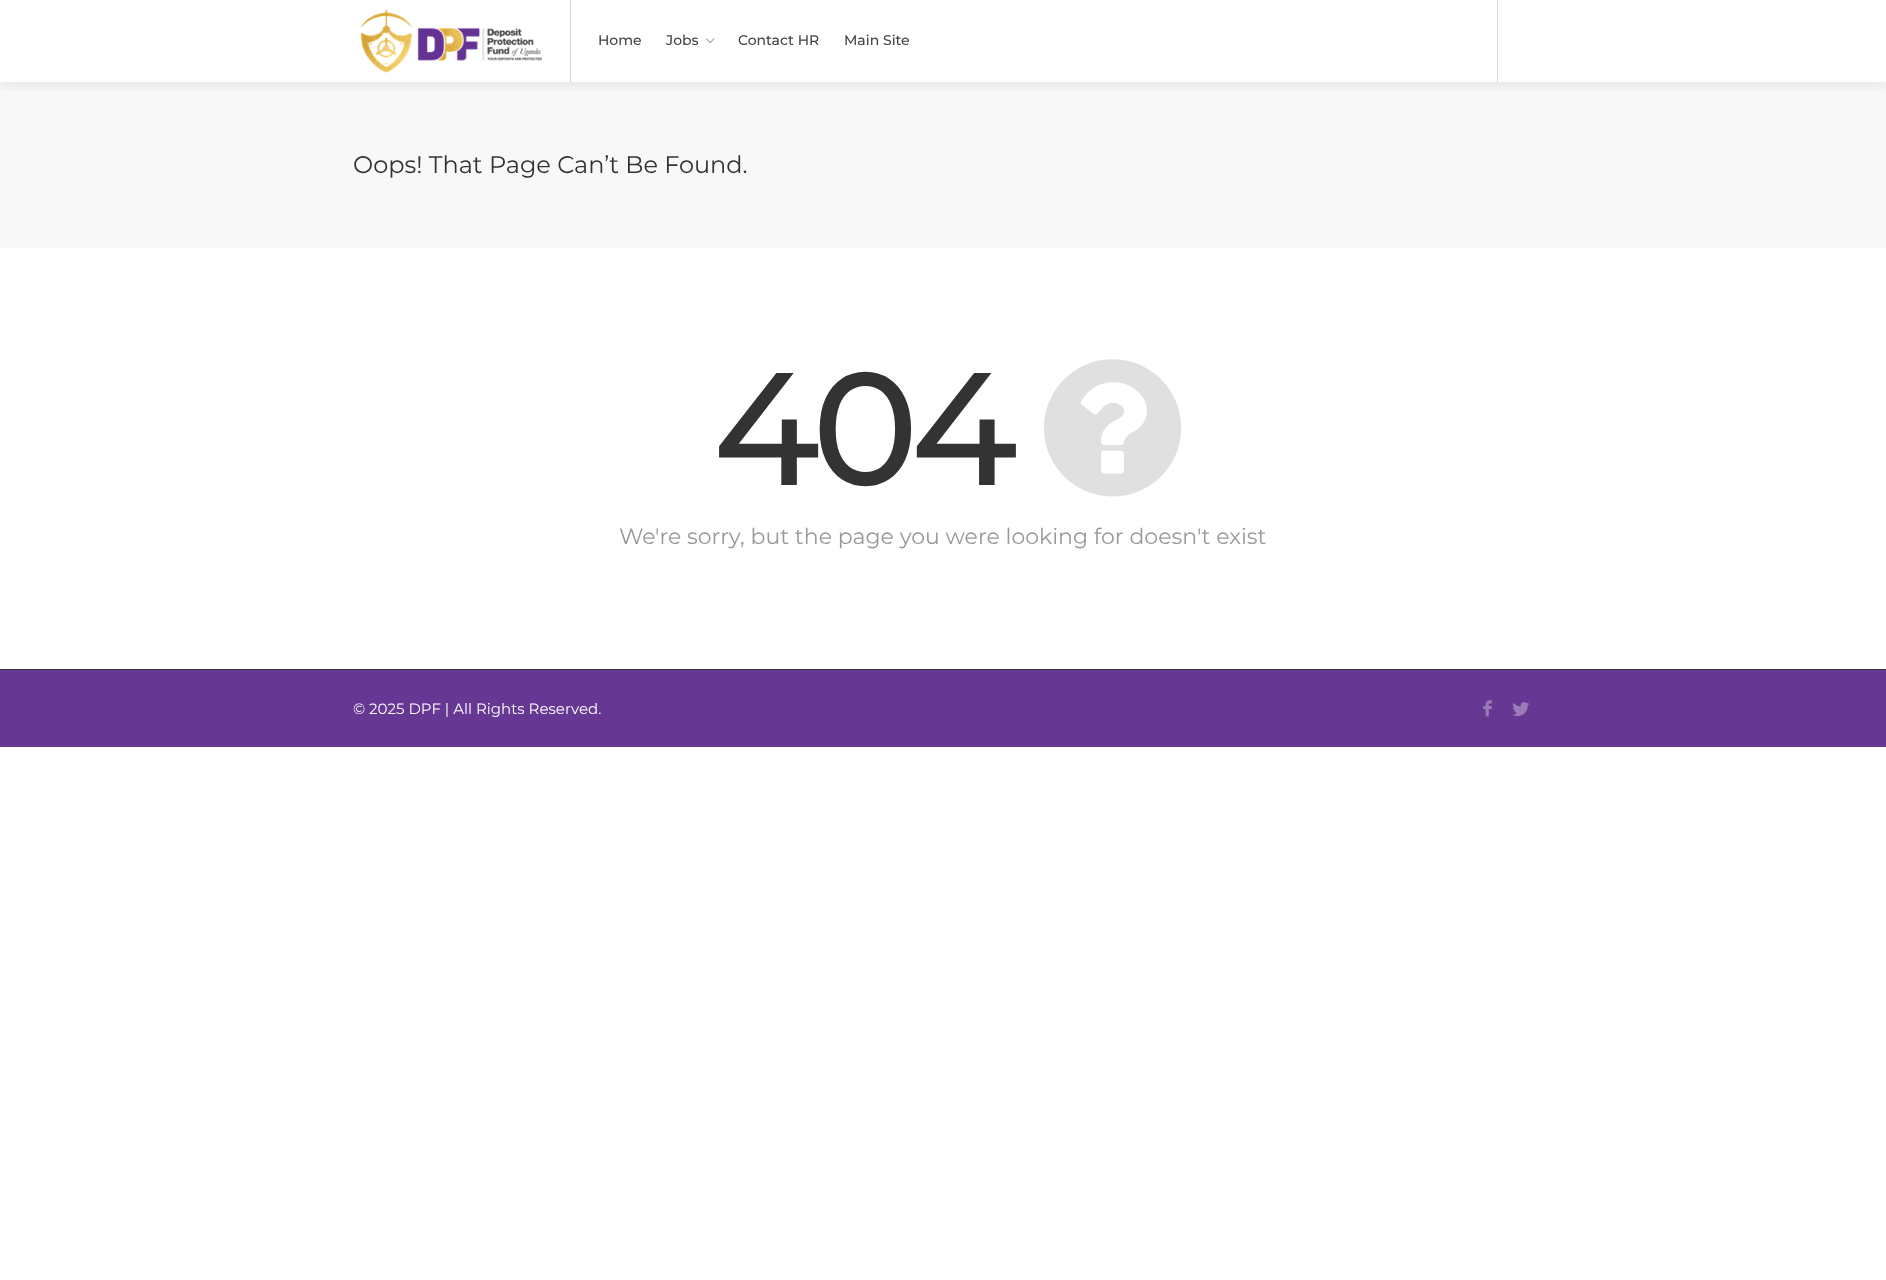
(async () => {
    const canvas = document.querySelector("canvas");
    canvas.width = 1886;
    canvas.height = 1280;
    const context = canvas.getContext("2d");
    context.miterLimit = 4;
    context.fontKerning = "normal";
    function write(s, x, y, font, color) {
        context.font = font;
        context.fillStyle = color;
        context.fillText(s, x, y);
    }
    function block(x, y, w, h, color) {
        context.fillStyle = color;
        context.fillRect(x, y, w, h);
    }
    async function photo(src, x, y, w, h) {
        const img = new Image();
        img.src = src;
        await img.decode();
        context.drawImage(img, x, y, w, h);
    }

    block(0, 0, 1886, 1280, "rgb(255, 255, 255)");
    block(0, 82, 1886, 166, "rgb(248, 248, 248)");
    context.save();
    context.beginPath();
    context.rect(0, 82, 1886, 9);
    context.clip();
    context.fillStyle = "rgba(0, 0, 0, 0.12)";
    context.filter = "blur(9px)";
    context.beginPath();
    context.rect(0, 0, 1886, 82);
    context.fill();
    context.filter = "none";
    context.restore();
    block(570, 0, 1, 82, "rgb(217, 217, 217)");
    await photo("media/1.png", 360, 9, 183, 64);
    write("Home", 598, 45, "500 14px Montserrat", "rgb(68, 68, 68)");
    write("Jobs", 666, 45, "500 14px Montserrat", "rgb(68, 68, 68)");
    await photo("media/2.png", 705, 38, 10, 6);
    write("Contact HR", 738, 45, "500 14px Montserrat", "rgb(68, 68, 68)");
    write("Main Site", 844, 45, "500 14px Montserrat", "rgb(68, 68, 68)");
    block(1497, 0, 1, 82, "rgb(217, 217, 217)");
    write("Oops! That Page Can’t Be Found.", 353, 173, "24px Montserrat", "rgb(51, 51, 51)");
    context.letterSpacing = "-8px";
    write("404", 713, 485, "500 160px Montserrat", "rgb(51, 51, 51)");
    await photo("media/3.png", 1044, 359, 138, 138);
    context.letterSpacing = "0px";
    write("We're sorry, but the page you were looking for doesn't exist", 619, 544, "22px Montserrat", "rgb(153, 153, 153)");
    block(0, 670, 1886, 77, "rgb(102, 55, 147)");
    block(0, 669, 1886, 1, "rgb(51, 51, 51)");
    write("© 2025 DPF | All Rights Reserved.", 353, 714, "15px Montserrat", "rgb(255, 255, 255)");
    await photo("media/4.png", 1483, 700, 9, 17);
    await photo("media/5.png", 1512, 702, 17, 15);
})();
